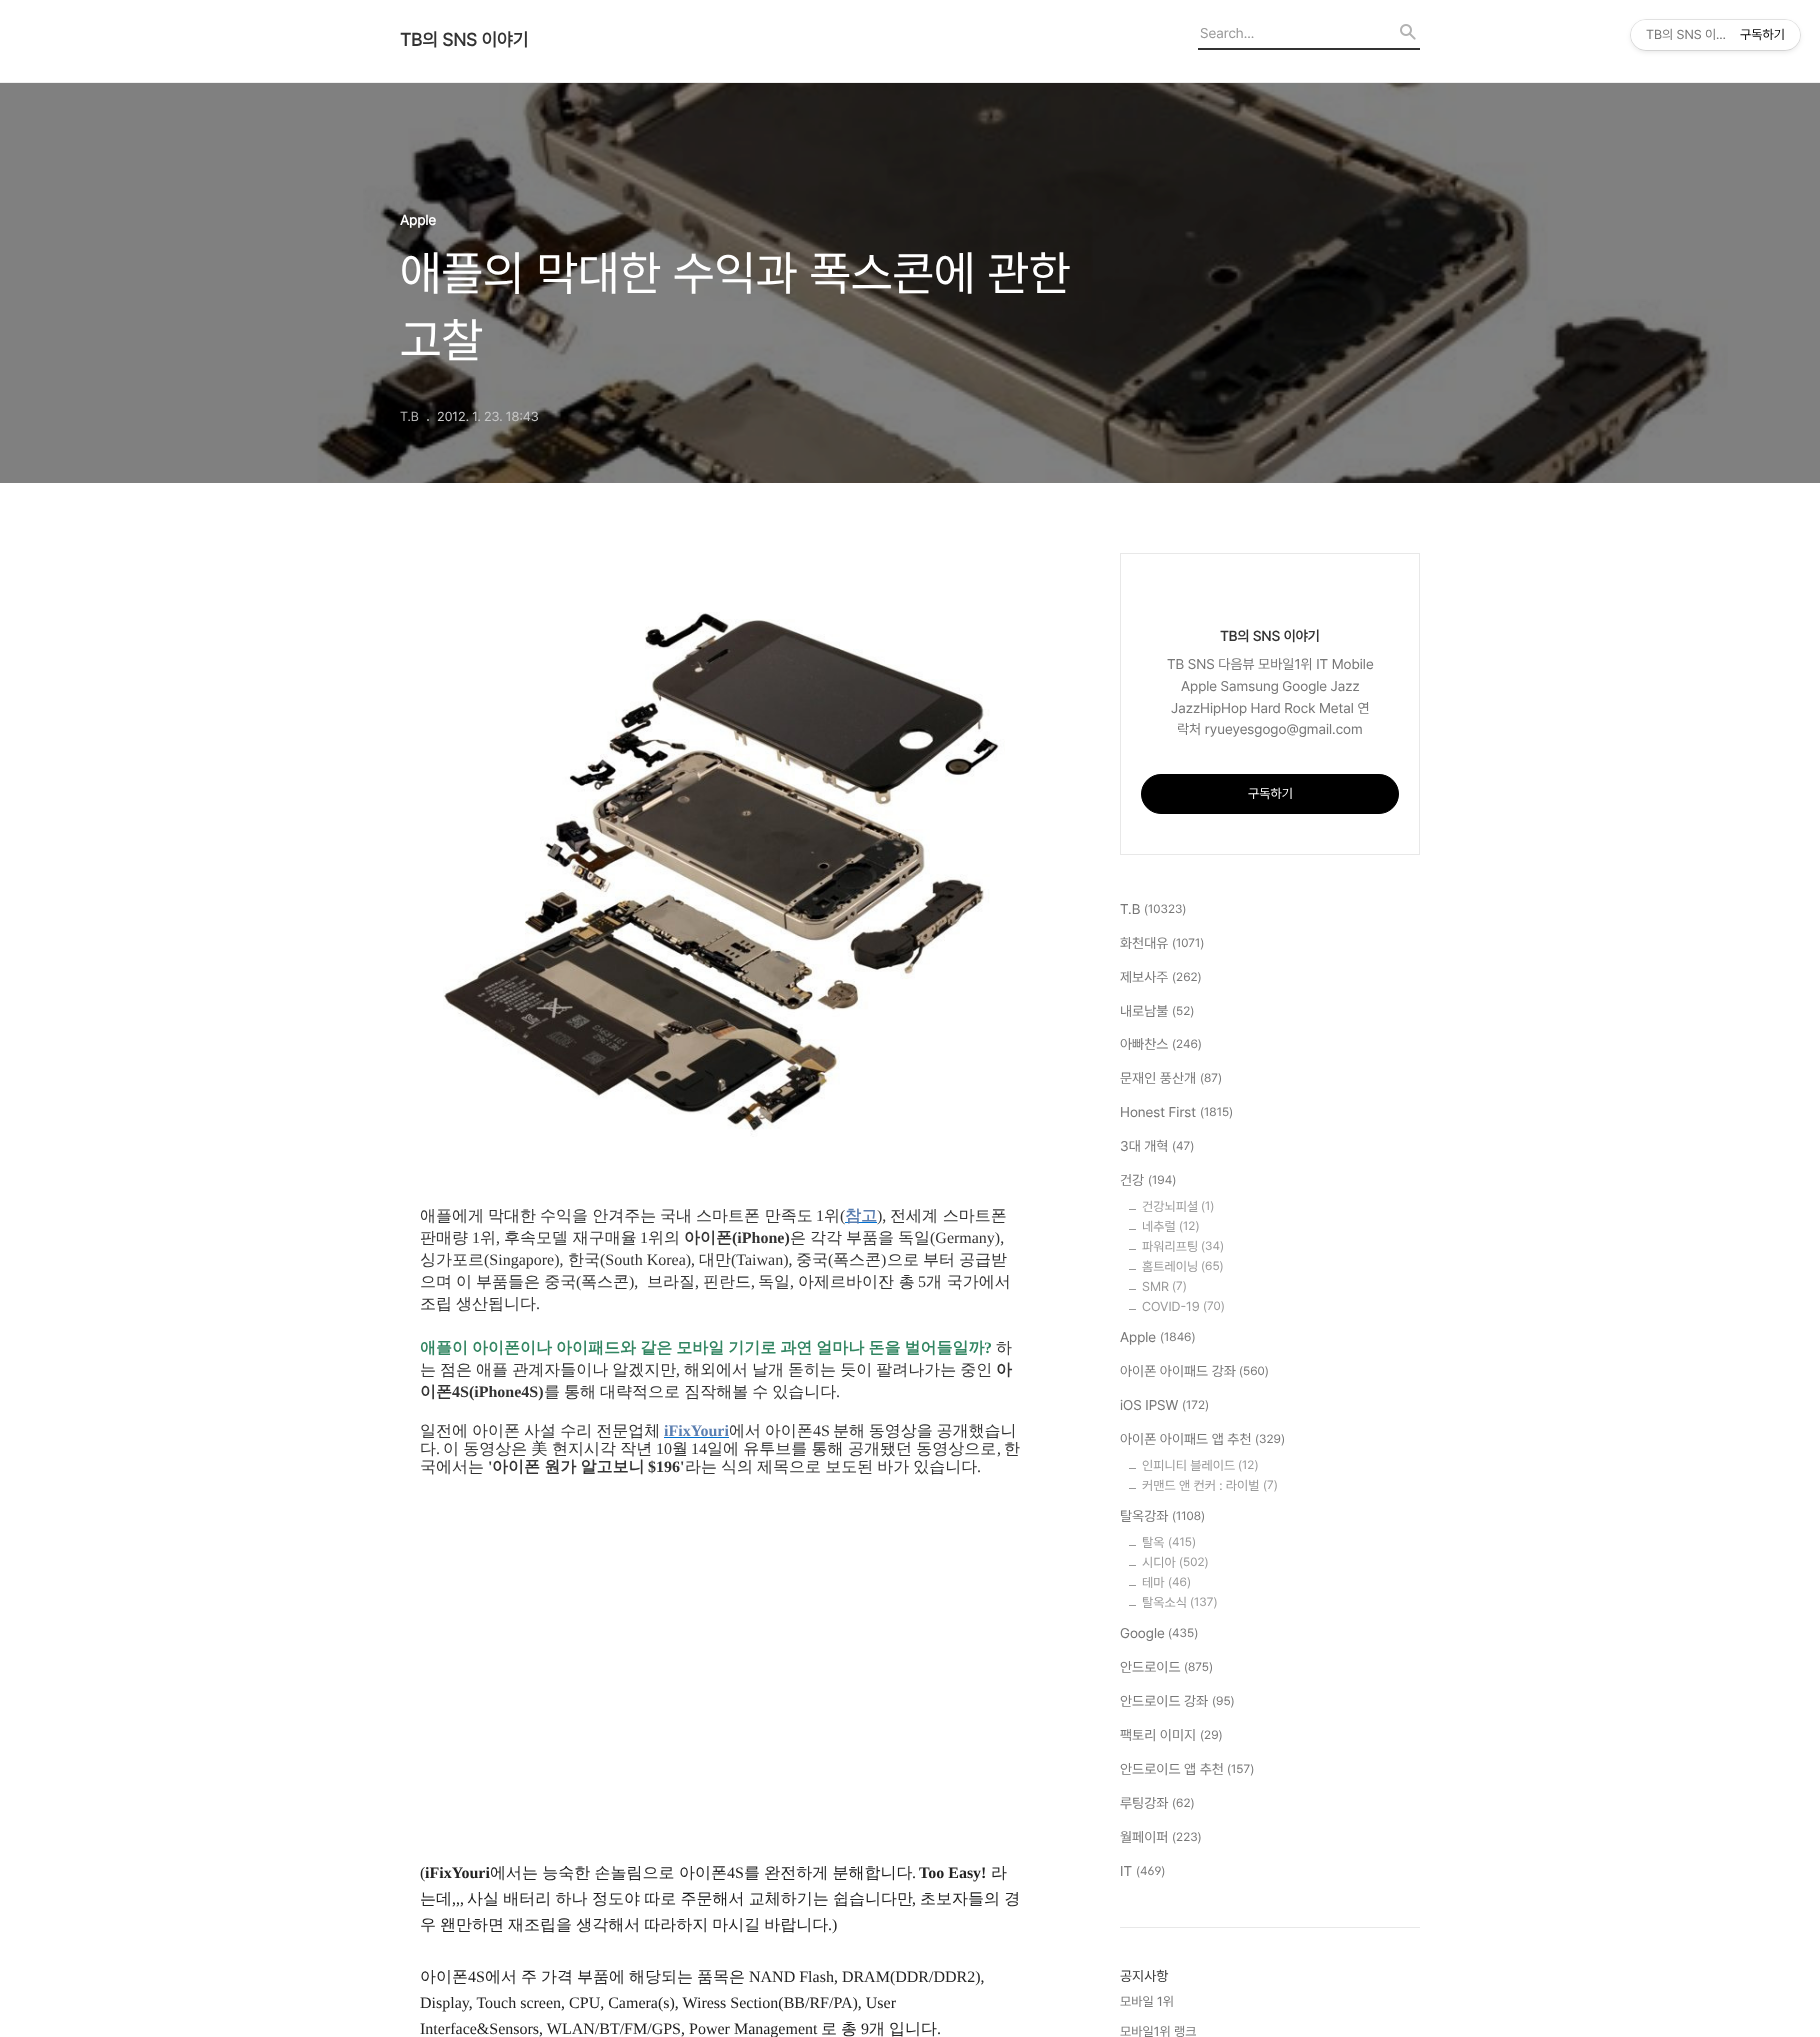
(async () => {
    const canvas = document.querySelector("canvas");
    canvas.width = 1820;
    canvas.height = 2037;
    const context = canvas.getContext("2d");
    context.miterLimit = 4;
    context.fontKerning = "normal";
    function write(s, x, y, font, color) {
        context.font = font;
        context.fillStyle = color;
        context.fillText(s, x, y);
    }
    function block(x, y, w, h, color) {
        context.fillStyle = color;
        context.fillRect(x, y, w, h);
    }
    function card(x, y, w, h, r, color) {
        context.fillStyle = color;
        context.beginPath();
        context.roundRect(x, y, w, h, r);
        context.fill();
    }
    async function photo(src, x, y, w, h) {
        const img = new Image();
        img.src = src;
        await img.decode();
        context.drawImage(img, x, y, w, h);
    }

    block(0, 0, 1820, 2037, "rgb(255, 255, 255)");
    block(0, 83, 1820, 400, "rgb(128, 128, 128)");
    block(0, 82, 1820, 1, "rgb(239, 239, 239)");
    write("TB의 SNS 이야기", 400, 46, "bold 18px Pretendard", "rgb(51, 51, 51)");
    await photo("media/1.png", 1400, 24, 16, 16);
    block(1198, 48, 222, 2, "rgb(51, 51, 51)");
    write("Search...", 1200, 38, "14px Pretendard", "rgb(153, 153, 153)");
    await photo("media/2.png", 317, 83, 1411, 400);
    write("Apple", 400, 225, "bold 14px Pretendard", "rgb(255, 255, 255)");
    write("애플의 막대한 수익과 폭스콘에 관한", 400, 290, "48px Pretendard", "rgb(255, 255, 255)");
    write("고찰", 400, 357, "48px Pretendard", "rgb(255, 255, 255)");
    write("T.B", 400, 421, "13px Pretendard", "rgb(179, 179, 179)");
    context.fillStyle = "rgba(255, 255, 255, 0.7)";
    context.beginPath();
    context.arc(428, 420, 1, 0, Math.PI * 2);
    context.fill();
    write("2012. 1. 23. 18:43", 437, 421, "13px Pretendard", "rgb(200, 200, 200)");
    await photo("media/3.png", 443, 612, 562, 525);
    context.wordSpacing = "-0.75px";
    write("애플에게 막대한 수익을 안겨주는", 420, 1221, "500 16px WenQuanYi Zen Hei", "rgb(51, 51, 51)");
    context.wordSpacing = "0px";
    write("스마트폰 만족도", 696, 1221, "500 16px WenQuanYi Zen Hei", "rgb(51, 51, 51)");
    write("1", 816, 1221, "16px Liberation Serif", "rgb(51, 51, 51)");
    write("위", 824, 1221, "500 16px WenQuanYi Zen Hei", "rgb(51, 51, 51)");
    write("(", 840, 1221, "16px Liberation Serif", "rgb(51, 51, 51)");
    block(845, 1222, 32, 1, "rgb(0, 112, 209)");
    write("참고", 845, 1221, "bold 16px WenQuanYi Zen Hei", "rgb(92, 127, 176)");
    write("),", 877, 1221, "16px Liberation Serif", "rgb(51, 51, 51)");
    write("전세계 스마트폰", 890, 1221, "500 16px WenQuanYi Zen Hei", "rgb(51, 51, 51)");
    write("판매량", 420, 1243, "500 16px WenQuanYi Zen Hei", "rgb(51, 51, 51)");
    write("1", 472, 1243, "16px Liberation Serif", "rgb(51, 51, 51)");
    write("위", 480, 1243, "500 16px WenQuanYi Zen Hei", "rgb(51, 51, 51)");
    write("후속모델 재구매율", 504, 1243, "500 16px WenQuanYi Zen Hei", "rgb(51, 51, 51)");
    write("1", 640, 1243, "16px Liberation Serif", "rgb(51, 51, 51)");
    write("위의", 648, 1243, "500 16px WenQuanYi Zen Hei", "rgb(51, 51, 51)");
    write("아이폰", 684, 1243, "bold 16px WenQuanYi Zen Hei", "rgb(51, 51, 51)");
    write("(iPhone)", 732, 1243, "bold 16px Liberation Serif", "rgb(51, 51, 51)");
    write("은", 790, 1243, "500 16px WenQuanYi Zen Hei", "rgb(51, 51, 51)");
    write(",", 496, 1243, "16px Liberation Serif", "rgb(51, 51, 51)");
    write("국내", 660, 1221, "500 16px WenQuanYi Zen Hei", "rgb(51, 51, 51)");
    context.wordSpacing = "-0.75px";
    write("각각 부품을 독일", 810, 1243, "500 16px WenQuanYi Zen Hei", "rgb(51, 51, 51)");
    context.wordSpacing = "0px";
    write("(Germany),", 930, 1243, "16px Liberation Serif", "rgb(51, 51, 51)");
    write("싱가포르", 420, 1265, "500 16px WenQuanYi Zen Hei", "rgb(51, 51, 51)");
    write("(Singapore),", 484, 1265, "16px Liberation Serif", "rgb(51, 51, 51)");
    write("한국", 568, 1265, "500 16px WenQuanYi Zen Hei", "rgb(51, 51, 51)");
    write("(South Korea),", 600, 1265, "16px Liberation Serif", "rgb(51, 51, 51)");
    write("대만", 699, 1265, "500 16px WenQuanYi Zen Hei", "rgb(51, 51, 51)");
    write("(Taiwan),", 731, 1265, "16px Liberation Serif", "rgb(51, 51, 51)");
    write("중국", 796, 1265, "500 16px WenQuanYi Zen Hei", "rgb(51, 51, 51)");
    write("(", 828, 1265, "16px Liberation Serif", "rgb(51, 51, 51)");
    write("폭스콘", 833, 1265, "500 16px WenQuanYi Zen Hei", "rgb(51, 51, 51)");
    write(")", 881, 1265, "16px Liberation Serif", "rgb(51, 51, 51)");
    write("으로", 887, 1265, "500 16px WenQuanYi Zen Hei", "rgb(51, 51, 51)");
    write("부터", 923, 1265, "500 16px WenQuanYi Zen Hei", "rgb(51, 51, 51)");
    write("공급받", 959, 1265, "500 16px WenQuanYi Zen Hei", "rgb(51, 51, 51)");
    context.wordSpacing = "-0.75px";
    write("으며 이 부품들은 중국", 420, 1287, "500 16px WenQuanYi Zen Hei", "rgb(51, 51, 51)");
    context.wordSpacing = "0px";
    write("(", 576, 1287, "16px Liberation Serif", "rgb(51, 51, 51)");
    write("폭스콘", 581, 1287, "500 16px WenQuanYi Zen Hei", "rgb(51, 51, 51)");
    write("),", 629, 1287, "16px Liberation Serif", "rgb(51, 51, 51)");
    write("브라질", 647, 1287, "500 16px WenQuanYi Zen Hei", "rgb(51, 51, 51)");
    write(",", 695, 1287, "16px Liberation Serif", "rgb(51, 51, 51)");
    write("핀란드", 703, 1287, "500 16px WenQuanYi Zen Hei", "rgb(51, 51, 51)");
    write(",", 751, 1287, "16px Liberation Serif", "rgb(51, 51, 51)");
    write("독일", 758, 1287, "500 16px WenQuanYi Zen Hei", "rgb(51, 51, 51)");
    write(",", 790, 1287, "16px Liberation Serif", "rgb(51, 51, 51)");
    write("아제르바이잔 총", 798, 1287, "500 16px WenQuanYi Zen Hei", "rgb(51, 51, 51)");
    write("5", 918, 1287, "16px Liberation Serif", "rgb(51, 51, 51)");
    write("개 국가에서", 926, 1287, "500 16px WenQuanYi Zen Hei", "rgb(51, 51, 51)");
    context.wordSpacing = "-0.75px";
    write("조립 생산됩니다", 420, 1309, "500 16px WenQuanYi Zen Hei", "rgb(51, 51, 51)");
    context.wordSpacing = "0px";
    write(".", 536, 1309, "16px Liberation Serif", "rgb(51, 51, 51)");
    context.wordSpacing = "-0.75px";
    write("애플이 아이폰이나 아이패드와 같은 모바일 기기로 과연 얼마나 돈을 벌어들일까", 420, 1353, "bold 16px WenQuanYi Zen Hei", "rgb(49, 133, 97)");
    context.wordSpacing = "0px";
    write("?", 984, 1353, "bold 16px Liberation Serif", "rgb(49, 133, 97)");
    write("하", 996, 1353, "500 16px WenQuanYi Zen Hei", "rgb(51, 51, 51)");
    context.wordSpacing = "-0.75px";
    write("는 점은 애플 관계자들이나 알겠지만", 420, 1375, "500 16px WenQuanYi Zen Hei", "rgb(51, 51, 51)");
    context.wordSpacing = "0px";
    write(",", 676, 1375, "16px Liberation Serif", "rgb(51, 51, 51)");
    context.wordSpacing = "-0.75px";
    write("해외에서 날개 돋히는 듯이 팔려나가는 중인", 684, 1375, "500 16px WenQuanYi Zen Hei", "rgb(51, 51, 51)");
    context.wordSpacing = "0px";
    write("아", 996, 1375, "bold 16px WenQuanYi Zen Hei", "rgb(51, 51, 51)");
    write("이폰", 420, 1397, "bold 16px WenQuanYi Zen Hei", "rgb(51, 51, 51)");
    write("4S(iPhone4S)", 452, 1397, "bold 16px Liberation Serif", "rgb(51, 51, 51)");
    context.wordSpacing = "-0.75px";
    write("를 통해 대략적으로 짐작해볼 수 있습니다", 544, 1397, "500 16px WenQuanYi Zen Hei", "rgb(51, 51, 51)");
    context.wordSpacing = "0px";
    write(".", 836, 1397, "16px Liberation Serif", "rgb(51, 51, 51)");
    context.wordSpacing = "-0.75px";
    write("일전에 아이폰 사설 수리 전문업체", 420, 1436, "500 16px WenQuanYi Zen Hei", "rgb(51, 51, 51)");
    context.wordSpacing = "0px";
    write("iFixYouri", 664, 1436, "bold 16px Liberation Serif", "rgb(92, 127, 176)");
    block(664, 1437, 65, 1, "rgb(0, 112, 209)");
    context.wordSpacing = "-1px";
    write("에서 아이폰", 729, 1436, "500 16px WenQuanYi Zen Hei", "rgb(51, 51, 51)");
    context.wordSpacing = "0px";
    write("4S", 813, 1436, "16px Liberation Serif", "rgb(51, 51, 51)");
    context.wordSpacing = "-1px";
    write("분해 동영상을 공개했습니", 833, 1436, "500 16px WenQuanYi Zen Hei", "rgb(51, 51, 51)");
    context.wordSpacing = "0px";
    write("다", 420, 1454, "500 16px WenQuanYi Zen Hei", "rgb(51, 51, 51)");
    write(".", 436, 1454, "16px Liberation Serif", "rgb(51, 51, 51)");
    context.wordSpacing = "-0.5px";
    write("이 동영상은 美 현지시각 작년", 443, 1454, "500 16px WenQuanYi Zen Hei", "rgb(51, 51, 51)");
    context.wordSpacing = "0px";
    write("10", 656, 1454, "16px Liberation Serif", "rgb(51, 51, 51)");
    write("월", 672, 1454, "500 16px WenQuanYi Zen Hei", "rgb(51, 51, 51)");
    write("14", 691, 1454, "16px Liberation Serif", "rgb(51, 51, 51)");
    context.wordSpacing = "-0.5px";
    write("일에 유투브를 통해 공개됐던 동영상으로", 707, 1454, "500 16px WenQuanYi Zen Hei", "rgb(51, 51, 51)");
    context.wordSpacing = "0px";
    write(",", 997, 1454, "16px Liberation Serif", "rgb(51, 51, 51)");
    write("한", 1004, 1454, "500 16px WenQuanYi Zen Hei", "rgb(51, 51, 51)");
    write("국에서는", 420, 1472, "500 16px WenQuanYi Zen Hei", "rgb(51, 51, 51)");
    write("'", 488, 1472, "bold 16px Liberation Serif", "rgb(51, 51, 51)");
    context.wordSpacing = "-0.5px";
    write("아이폰 원가 알고보니", 492, 1472, "bold 16px WenQuanYi Zen Hei", "rgb(51, 51, 51)");
    context.wordSpacing = "0px";
    write("$196'", 648, 1472, "bold 16px Liberation Serif", "rgb(51, 51, 51)");
    context.wordSpacing = "-0.75px";
    write("라는 식의 제목으로 보도된 바가 있습니다", 685, 1472, "500 16px WenQuanYi Zen Hei", "rgb(51, 51, 51)");
    context.wordSpacing = "0px";
    write(".", 977, 1472, "16px Liberation Serif", "rgb(51, 51, 51)");
    write("(", 420, 1878, "16px Liberation Serif", "rgb(34, 34, 34)");
    write("iFixYouri", 425, 1878, "bold 16px Liberation Serif", "rgb(34, 34, 34)");
    context.wordSpacing = "-0.5px";
    write("에서는 능숙한 손놀림으로 아이폰", 490, 1878, "500 16px WenQuanYi Zen Hei", "rgb(34, 34, 34)");
    context.wordSpacing = "0px";
    write("4S", 727, 1878, "16px Liberation Serif", "rgb(34, 34, 34)");
    context.wordSpacing = "-0.5px";
    write("를 완전하게 분해합니다", 744, 1878, "500 16px WenQuanYi Zen Hei", "rgb(34, 34, 34)");
    context.wordSpacing = "0px";
    write(".", 912, 1878, "16px Liberation Serif", "rgb(34, 34, 34)");
    write("Too Easy!", 919, 1878, "bold 16px Liberation Serif", "rgb(34, 34, 34)");
    write("라", 991, 1878, "500 16px WenQuanYi Zen Hei", "rgb(34, 34, 34)");
    write("는데", 420, 1904, "500 16px WenQuanYi Zen Hei", "rgb(34, 34, 34)");
    write(",,,", 452, 1904, "16px Liberation Serif", "rgb(34, 34, 34)");
    context.wordSpacing = "-0.5px";
    write("사실 배터리 하나 정도야 따로 주문해서 교체하기는 쉽습니다만", 467, 1904, "500 16px WenQuanYi Zen Hei", "rgb(34, 34, 34)");
    context.wordSpacing = "0px";
    write(",", 912, 1904, "16px Liberation Serif", "rgb(34, 34, 34)");
    context.wordSpacing = "-0.5px";
    write("초보자들의 경", 920, 1904, "500 16px WenQuanYi Zen Hei", "rgb(34, 34, 34)");
    context.wordSpacing = "-0.75px";
    write("우 왠만하면 재조립을 생각해서 따라하지 마시길 바랍니다", 420, 1930, "500 16px WenQuanYi Zen Hei", "rgb(34, 34, 34)");
    context.wordSpacing = "0px";
    write(".)", 828, 1930, "16px Liberation Serif", "rgb(34, 34, 34)");
    write("아이폰", 420, 1982, "500 16px WenQuanYi Zen Hei", "rgb(34, 34, 34)");
    write("4S", 468, 1982, "16px Liberation Serif", "rgb(34, 34, 34)");
    write("에서", 485, 1982, "500 16px WenQuanYi Zen Hei", "rgb(34, 34, 34)");
    write("주", 521, 1982, "500 16px WenQuanYi Zen Hei", "rgb(34, 34, 34)");
    write("가격", 541, 1982, "500 16px WenQuanYi Zen Hei", "rgb(34, 34, 34)");
    write("부품에", 577, 1982, "500 16px WenQuanYi Zen Hei", "rgb(34, 34, 34)");
    write("해당되는", 629, 1982, "500 16px WenQuanYi Zen Hei", "rgb(34, 34, 34)");
    write("품목은", 697, 1982, "500 16px WenQuanYi Zen Hei", "rgb(34, 34, 34)");
    write("NAND Flash, DRAM(DDR/DDR2),", 749, 1982, "16px Liberation Serif", "rgb(34, 34, 34)");
    write("Display, Touch screen, CPU, Camera(s), Wiress Section(BB/RF/PA), User", 420, 2008, "16px Liberation Serif", "rgb(34, 34, 34)");
    write("Interface&Sensors, WLAN/BT/FM/GPS, Power Management", 420, 2034, "16px Liberation Serif", "rgb(34, 34, 34)");
    write("로", 821, 2034, "500 16px WenQuanYi Zen Hei", "rgb(34, 34, 34)");
    write("총", 841, 2034, "500 16px WenQuanYi Zen Hei", "rgb(34, 34, 34)");
    write("9", 861, 2034, "16px Liberation Serif", "rgb(34, 34, 34)");
    write("개", 869, 2034, "500 16px WenQuanYi Zen Hei", "rgb(34, 34, 34)");
    write("입니다", 889, 2034, "500 16px WenQuanYi Zen Hei", "rgb(34, 34, 34)");
    write(".", 937, 2034, "16px Liberation Serif", "rgb(34, 34, 34)");
    context.strokeStyle = "rgb(232, 232, 232)";
    context.strokeRect(1120.5, 553.5, 299, 301);
    write("TB의 SNS 이야기", 1220, 641, "bold 14px Pretendard", "rgb(51, 51, 51)");
    write("TB SNS 다음뷰 모바일1위 IT Mobile", 1167, 669, "14px Pretendard", "rgb(119, 119, 119)");
    write("Apple Samsung Google Jazz", 1181, 691, "14px Pretendard", "rgb(119, 119, 119)");
    write("JazzHipHop Hard Rock Metal 연", 1171, 713, "14px Pretendard", "rgb(119, 119, 119)");
    write("락처 ryueyesgogo@gmail.com", 1177, 734, "14px Pretendard", "rgb(119, 119, 119)");
    context.fillStyle = "rgb(0, 0, 0)";
    context.beginPath();
    context.roundRect(1141.5, 774.5, 257, 39, 19.5);
    context.fill();
    context.strokeStyle = "rgb(0, 0, 0)";
    context.stroke();
    write("구독하기", 1248, 798, "13px Pretendard", "rgb(255, 255, 255)");
    block(1120, 1927, 300, 1, "rgb(232, 232, 232)");
    write("T.B", 1120, 914, "14px Pretendard", "rgb(119, 119, 119)");
    write("(10323)", 1144, 913, "12px Pretendard", "rgb(119, 119, 119)");
    write("화천대유", 1120, 948, "14px Pretendard", "rgb(119, 119, 119)");
    write("(1071)", 1172, 947, "12px Pretendard", "rgb(119, 119, 119)");
    write("제보사주", 1120, 982, "14px Pretendard", "rgb(119, 119, 119)");
    write("(262)", 1172, 981, "12px Pretendard", "rgb(119, 119, 119)");
    write("내로남불", 1120, 1016, "14px Pretendard", "rgb(119, 119, 119)");
    write("(52)", 1172, 1015, "12px Pretendard", "rgb(119, 119, 119)");
    write("아빠찬스", 1120, 1049, "14px Pretendard", "rgb(119, 119, 119)");
    write("(246)", 1172, 1048, "12px Pretendard", "rgb(119, 119, 119)");
    write("문재인 풍산개", 1120, 1083, "14px Pretendard", "rgb(119, 119, 119)");
    write("(87)", 1200, 1082, "12px Pretendard", "rgb(119, 119, 119)");
    write("Honest First", 1120, 1117, "14px Pretendard", "rgb(119, 119, 119)");
    write("(1815)", 1200, 1116, "12px Pretendard", "rgb(119, 119, 119)");
    write("3대 개혁", 1120, 1151, "14px Pretendard", "rgb(119, 119, 119)");
    write("(47)", 1172, 1150, "12px Pretendard", "rgb(119, 119, 119)");
    write("건강", 1120, 1185, "14px Pretendard", "rgb(119, 119, 119)");
    write("(194)", 1148, 1184, "12px Pretendard", "rgb(119, 119, 119)");
    block(1129, 1209, 7, 1, "rgb(153, 153, 153)");
    write("건강뇌피셜", 1142, 1211, "13px Pretendard", "rgb(153, 153, 153)");
    write("(1)", 1201, 1210, "12px Pretendard", "rgb(153, 153, 153)");
    block(1129, 1229, 7, 1, "rgb(153, 153, 153)");
    write("네추럴", 1142, 1231, "13px Pretendard", "rgb(153, 153, 153)");
    write("(12)", 1179, 1230, "12px Pretendard", "rgb(153, 153, 153)");
    block(1129, 1249, 7, 1, "rgb(153, 153, 153)");
    write("파워리프팅", 1142, 1251, "13px Pretendard", "rgb(153, 153, 153)");
    write("(34)", 1201, 1250, "12px Pretendard", "rgb(153, 153, 153)");
    block(1129, 1269, 7, 1, "rgb(153, 153, 153)");
    write("홈트레이닝", 1142, 1271, "13px Pretendard", "rgb(153, 153, 153)");
    write("(65)", 1201, 1270, "12px Pretendard", "rgb(153, 153, 153)");
    block(1129, 1289, 7, 1, "rgb(153, 153, 153)");
    write("SMR", 1142, 1291, "13px Pretendard", "rgb(153, 153, 153)");
    write("(7)", 1172, 1290, "12px Pretendard", "rgb(153, 153, 153)");
    block(1129, 1309, 7, 1, "rgb(153, 153, 153)");
    write("COVID-19", 1142, 1311, "13px Pretendard", "rgb(153, 153, 153)");
    write("(70)", 1203, 1310, "12px Pretendard", "rgb(153, 153, 153)");
    write("Apple", 1120, 1342, "14px Pretendard", "rgb(119, 119, 119)");
    write("(1846)", 1160, 1341, "12px Pretendard", "rgb(119, 119, 119)");
    write("아이폰 아이패드 강좌", 1120, 1376, "14px Pretendard", "rgb(119, 119, 119)");
    write("(560)", 1239, 1375, "12px Pretendard", "rgb(119, 119, 119)");
    write("iOS IPSW", 1120, 1410, "14px Pretendard", "rgb(119, 119, 119)");
    write("(172)", 1182, 1409, "12px Pretendard", "rgb(119, 119, 119)");
    write("아이폰 아이패드 앱 추천", 1120, 1444, "14px Pretendard", "rgb(119, 119, 119)");
    write("(329)", 1255, 1443, "12px Pretendard", "rgb(119, 119, 119)");
    block(1129, 1468, 7, 1, "rgb(153, 153, 153)");
    write("인피니티 블레이드", 1142, 1470, "13px Pretendard", "rgb(153, 153, 153)");
    write("(12)", 1238, 1469, "12px Pretendard", "rgb(153, 153, 153)");
    block(1129, 1488, 7, 1, "rgb(153, 153, 153)");
    write("커맨드 앤 컨커 : 라이벌", 1142, 1490, "13px Pretendard", "rgb(153, 153, 153)");
    write("(7)", 1263, 1489, "12px Pretendard", "rgb(153, 153, 153)");
    write("탈옥강좌", 1120, 1521, "14px Pretendard", "rgb(119, 119, 119)");
    write("(1108)", 1172, 1520, "12px Pretendard", "rgb(119, 119, 119)");
    block(1129, 1545, 7, 1, "rgb(153, 153, 153)");
    write("탈옥", 1142, 1547, "13px Pretendard", "rgb(153, 153, 153)");
    write("(415)", 1168, 1546, "12px Pretendard", "rgb(153, 153, 153)");
    block(1129, 1565, 7, 1, "rgb(153, 153, 153)");
    write("시디아", 1142, 1567, "13px Pretendard", "rgb(153, 153, 153)");
    write("(502)", 1179, 1566, "12px Pretendard", "rgb(153, 153, 153)");
    block(1129, 1585, 7, 1, "rgb(153, 153, 153)");
    write("테마", 1142, 1587, "13px Pretendard", "rgb(153, 153, 153)");
    write("(46)", 1168, 1586, "12px Pretendard", "rgb(153, 153, 153)");
    block(1129, 1605, 7, 1, "rgb(153, 153, 153)");
    write("탈옥소식", 1142, 1607, "13px Pretendard", "rgb(153, 153, 153)");
    write("(137)", 1190, 1606, "12px Pretendard", "rgb(153, 153, 153)");
    write("Google", 1120, 1638, "14px Pretendard", "rgb(119, 119, 119)");
    write("(435)", 1168, 1637, "12px Pretendard", "rgb(119, 119, 119)");
    write("안드로이드", 1120, 1672, "14px Pretendard", "rgb(119, 119, 119)");
    write("(875)", 1184, 1671, "12px Pretendard", "rgb(119, 119, 119)");
    write("안드로이드 강좌", 1120, 1706, "14px Pretendard", "rgb(119, 119, 119)");
    write("(95)", 1212, 1705, "12px Pretendard", "rgb(119, 119, 119)");
    write("팩토리 이미지", 1120, 1740, "14px Pretendard", "rgb(119, 119, 119)");
    write("(29)", 1200, 1739, "12px Pretendard", "rgb(119, 119, 119)");
    write("안드로이드 앱 추천", 1120, 1774, "14px Pretendard", "rgb(119, 119, 119)");
    write("(157)", 1227, 1773, "12px Pretendard", "rgb(119, 119, 119)");
    write("루팅강좌", 1120, 1808, "14px Pretendard", "rgb(119, 119, 119)");
    write("(62)", 1172, 1807, "12px Pretendard", "rgb(119, 119, 119)");
    write("월페이퍼", 1120, 1842, "14px Pretendard", "rgb(119, 119, 119)");
    write("(223)", 1172, 1841, "12px Pretendard", "rgb(119, 119, 119)");
    write("IT", 1120, 1876, "14px Pretendard", "rgb(119, 119, 119)");
    write("(469)", 1136, 1875, "12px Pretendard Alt", "rgb(119, 119, 119)");
    write("공지사항", 1120, 1981, "14px Pretendard", "rgb(51, 51, 51)");
    write("모바일 1위", 1120, 2006, "13px Pretendard", "rgb(119, 119, 119)");
    write("모바일1위 랭크", 1120, 2036, "13px Pretendard", "rgb(119, 119, 119)");
    context.fillStyle = "rgba(0, 0, 0, 0.1)";
    context.filter = "blur(2.5px)";
    context.beginPath();
    context.roundRect(1631, 22, 169, 30, 15);
    context.fill();
    context.filter = "none";
    context.beginPath();
    context.roundRect(1630.5, 19.5, 170, 31, 15.5);
    context.strokeStyle = "rgba(0, 0, 0, 0.1)";
    context.stroke();
    card(1631, 20, 169, 30, 15, "rgb(255, 255, 255)");
    write("TB의 SNS 이…", 1646, 39, "13px Pretendard", "rgb(119, 119, 119)");
    write("구독하기", 1740, 39, "13px Pretendard", "rgb(0, 0, 0)");
})();
